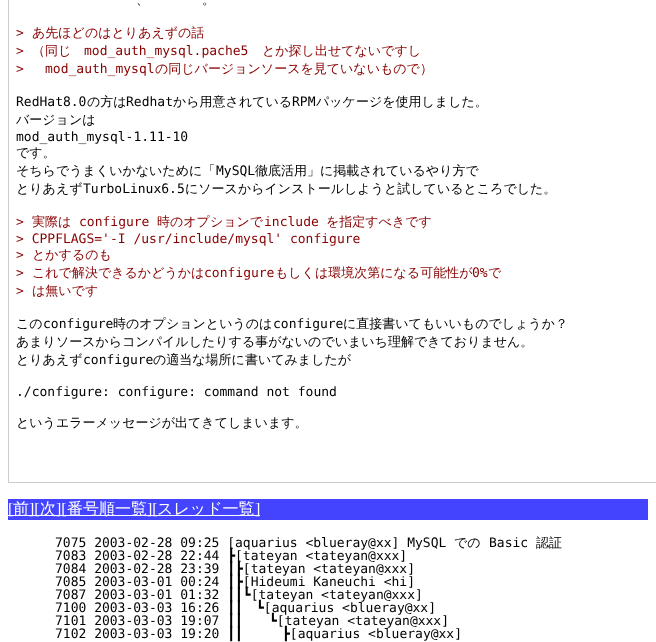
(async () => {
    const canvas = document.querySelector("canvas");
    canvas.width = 656;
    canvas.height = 642;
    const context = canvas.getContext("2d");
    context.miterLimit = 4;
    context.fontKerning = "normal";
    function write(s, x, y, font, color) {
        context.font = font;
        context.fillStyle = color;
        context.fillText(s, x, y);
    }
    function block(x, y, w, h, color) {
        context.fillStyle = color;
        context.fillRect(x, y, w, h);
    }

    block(0, 0, 656, 642, "rgb(255, 255, 255)");
    context.strokeStyle = "rgb(204, 204, 204)";
    context.strokeRect(8.5, -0.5, 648, 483);
    write("、", 136, 4, "500 13px WenQuanYi Zen Hei", "rgb(0, 0, 0)");
    write("。", 202, 4, "500 13px WenQuanYi Zen Hei", "rgb(0, 0, 0)");
    write(">", 16, 37, "13px DejaVu Sans Mono", "rgb(136, 0, 0)");
    write("あ先ほどのはとりあえずの話", 32, 37, "500 13px WenQuanYi Zen Hei", "rgb(136, 0, 0)");
    write(">", 16, 55, "13px DejaVu Sans Mono", "rgb(136, 0, 0)");
    write("（同じ", 32, 55, "500 13px WenQuanYi Zen Hei", "rgb(136, 0, 0)");
    write("mod_auth_mysql.pache5", 84, 55, "13px DejaVu Sans Mono", "rgb(136, 0, 0)");
    write("とか探し出せてないですし", 262, 55, "500 13px WenQuanYi Zen Hei", "rgb(136, 0, 0)");
    write(">", 16, 73, "13px DejaVu Sans Mono", "rgb(136, 0, 0)");
    write("mod_auth_mysql", 45, 73, "13px DejaVu Sans Mono", "rgb(136, 0, 0)");
    write("の同じバージョンソースを見ていないもので）", 155, 73, "500 13px WenQuanYi Zen Hei", "rgb(136, 0, 0)");
    write("RedHat8.0", 16, 106, "13px DejaVu Sans Mono", "rgb(0, 0, 0)");
    write("の方は", 87, 106, "500 13px WenQuanYi Zen Hei", "rgb(0, 0, 0)");
    write("Redhat", 126, 106, "13px DejaVu Sans Mono", "rgb(0, 0, 0)");
    write("から用意されている", 173, 106, "500 13px WenQuanYi Zen Hei", "rgb(0, 0, 0)");
    write("RPM", 292, 106, "13px DejaVu Sans Mono", "rgb(0, 0, 0)");
    write("パッケージを使用しました。", 316, 106, "500 13px WenQuanYi Zen Hei", "rgb(0, 0, 0)");
    write("バージョンは", 16, 124, "500 13px WenQuanYi Zen Hei", "rgb(0, 0, 0)");
    write("mod_auth_mysql-1.11-10", 16, 141, "13px DejaVu Sans Mono", "rgb(0, 0, 0)");
    write("です。", 16, 157, "500 13px WenQuanYi Zen Hei", "rgb(0, 0, 0)");
    write("そちらでうまくいかないために「", 16, 175, "500 13px WenQuanYi Zen Hei", "rgb(0, 0, 0)");
    write("MySQL", 216, 175, "13px DejaVu Sans Mono", "rgb(0, 0, 0)");
    write("徹底活用」に掲載されているやり方で", 255, 175, "500 13px WenQuanYi Zen Hei", "rgb(0, 0, 0)");
    write("とりあえず", 16, 193, "500 13px WenQuanYi Zen Hei", "rgb(0, 0, 0)");
    write("TurboLinux6.5", 83, 193, "13px DejaVu Sans Mono", "rgb(0, 0, 0)");
    write("にソースからインストールしようと試しているところでした。", 185, 193, "500 13px WenQuanYi Zen Hei", "rgb(0, 0, 0)");
    write(">", 16, 226, "13px DejaVu Sans Mono", "rgb(136, 0, 0)");
    write("実際は", 32, 226, "500 13px WenQuanYi Zen Hei", "rgb(136, 0, 0)");
    write("configure", 79, 226, "13px DejaVu Sans Mono", "rgb(136, 0, 0)");
    write("時のオプションで", 157, 226, "500 13px WenQuanYi Zen Hei", "rgb(136, 0, 0)");
    write("include", 264, 226, "13px DejaVu Sans Mono", "rgb(136, 0, 0)");
    write("を指定すべきです", 326, 226, "500 13px WenQuanYi Zen Hei", "rgb(136, 0, 0)");
    write("> CPPFLAGS='-I /usr/include/mysql' configure", 16, 243, "13px DejaVu Sans Mono", "rgb(136, 0, 0)");
    write(">", 16, 259, "13px DejaVu Sans Mono", "rgb(136, 0, 0)");
    write("とかするのも", 32, 259, "500 13px WenQuanYi Zen Hei", "rgb(136, 0, 0)");
    write(">", 16, 277, "13px DejaVu Sans Mono", "rgb(136, 0, 0)");
    write("これで解決できるかどうかは", 32, 277, "500 13px WenQuanYi Zen Hei", "rgb(136, 0, 0)");
    write("configure", 204, 277, "13px DejaVu Sans Mono", "rgb(136, 0, 0)");
    write("もしくは環境次第になる可能性が", 275, 277, "500 13px WenQuanYi Zen Hei", "rgb(136, 0, 0)");
    write("0%", 472, 277, "13px DejaVu Sans Mono", "rgb(136, 0, 0)");
    write("で", 488, 277, "500 13px WenQuanYi Zen Hei", "rgb(136, 0, 0)");
    write(">", 16, 295, "13px DejaVu Sans Mono", "rgb(136, 0, 0)");
    write("は無いです", 32, 295, "500 13px WenQuanYi Zen Hei", "rgb(136, 0, 0)");
    write("この", 16, 328, "500 13px WenQuanYi Zen Hei", "rgb(0, 0, 0)");
    write("configure", 43, 328, "13px DejaVu Sans Mono", "rgb(0, 0, 0)");
    write("時のオプションというのは", 113, 328, "500 13px WenQuanYi Zen Hei", "rgb(0, 0, 0)");
    write("configure", 273, 328, "13px DejaVu Sans Mono", "rgb(0, 0, 0)");
    write("に直接書いてもいいものでしょうか？", 343, 328, "500 13px WenQuanYi Zen Hei", "rgb(0, 0, 0)");
    write("あまりソースからコンパイルしたりする事がないのでいまいち理解できておりません。", 16, 346, "500 13px WenQuanYi Zen Hei", "rgb(0, 0, 0)");
    write("とりあえず", 16, 364, "500 13px WenQuanYi Zen Hei", "rgb(0, 0, 0)");
    write("configure", 83, 364, "13px DejaVu Sans Mono", "rgb(0, 0, 0)");
    write("の適当な場所に書いてみましたが", 153, 364, "500 13px WenQuanYi Zen Hei", "rgb(0, 0, 0)");
    write("./configure: configure: command not found", 16, 396, "13px DejaVu Sans Mono", "rgb(0, 0, 0)");
    write("というエラーメッセージが出てきてしまいます。", 16, 427, "500 13px WenQuanYi Zen Hei", "rgb(0, 0, 0)");
    block(8, 499, 640, 21, "rgb(68, 68, 255)");
    block(8, 515, 252, 1, "rgb(255, 255, 255)");
    write("[", 8, 514, "16px Liberation Serif", "rgb(255, 255, 255)");
    write("前", 13, 514, "500 16px WenQuanYi Zen Hei", "rgb(255, 255, 255)");
    write("][", 29, 514, "16px Liberation Serif", "rgb(255, 255, 255)");
    write("次", 40, 514, "500 16px WenQuanYi Zen Hei", "rgb(255, 255, 255)");
    write("][", 56, 514, "16px Liberation Serif", "rgb(255, 255, 255)");
    write("番号順一覧", 67, 514, "500 16px WenQuanYi Zen Hei", "rgb(255, 255, 255)");
    write("][", 147, 514, "16px Liberation Serif", "rgb(255, 255, 255)");
    write("スレッド一覧", 157, 514, "500 16px WenQuanYi Zen Hei", "rgb(255, 255, 255)");
    write("]", 255, 514, "16px Liberation Serif", "rgb(255, 255, 255)");
    write("7075 2003-02-28 09:25 [aquarius <blueray@xx] MySQL", 55, 547, "13px DejaVu Sans Mono", "rgb(0, 0, 0)");
    write("での", 454, 547, "500 13px WenQuanYi Zen Hei", "rgb(0, 0, 0)");
    write("Basic", 489, 547, "13px DejaVu Sans Mono", "rgb(0, 0, 0)");
    write("認証", 536, 547, "500 13px WenQuanYi Zen Hei", "rgb(0, 0, 0)");
    write("7083 2003-02-28 22:44 ┣[tateyan <tateyan@xxx]", 55, 560, "13px DejaVu Sans Mono", "rgb(0, 0, 0)");
    write("7084 2003-02-28 23:39 ┃┣[tateyan <tateyan@xxx]", 55, 573, "13px DejaVu Sans Mono", "rgb(0, 0, 0)");
    write("7085 2003-03-01 00:24 ┃┣[Hideumi Kaneuchi <hi]", 55, 586, "13px DejaVu Sans Mono", "rgb(0, 0, 0)");
    write("7087 2003-03-01 01:32 ┃┃┗[tateyan <tateyan@xxx]", 55, 599, "13px DejaVu Sans Mono", "rgb(0, 0, 0)");
    write("7100 2003-03-03 16:26 ┃┃", 55, 612, "13px DejaVu Sans Mono", "rgb(0, 0, 0)");
    write("┗[aquarius <blueray@xx]", 256, 612, "13px DejaVu Sans Mono", "rgb(0, 0, 0)");
    write("7101 2003-03-03 19:07 ┃┃", 55, 625, "13px DejaVu Sans Mono", "rgb(0, 0, 0)");
    write("┗[tateyan <tateyan@xxx]", 269, 625, "13px DejaVu Sans Mono", "rgb(0, 0, 0)");
    write("7102 2003-03-03 19:20 ┃┃", 55, 638, "13px DejaVu Sans Mono", "rgb(0, 0, 0)");
    write("┣[aquarius <blueray@xx]", 282, 638, "13px DejaVu Sans Mono", "rgb(0, 0, 0)");
})();
